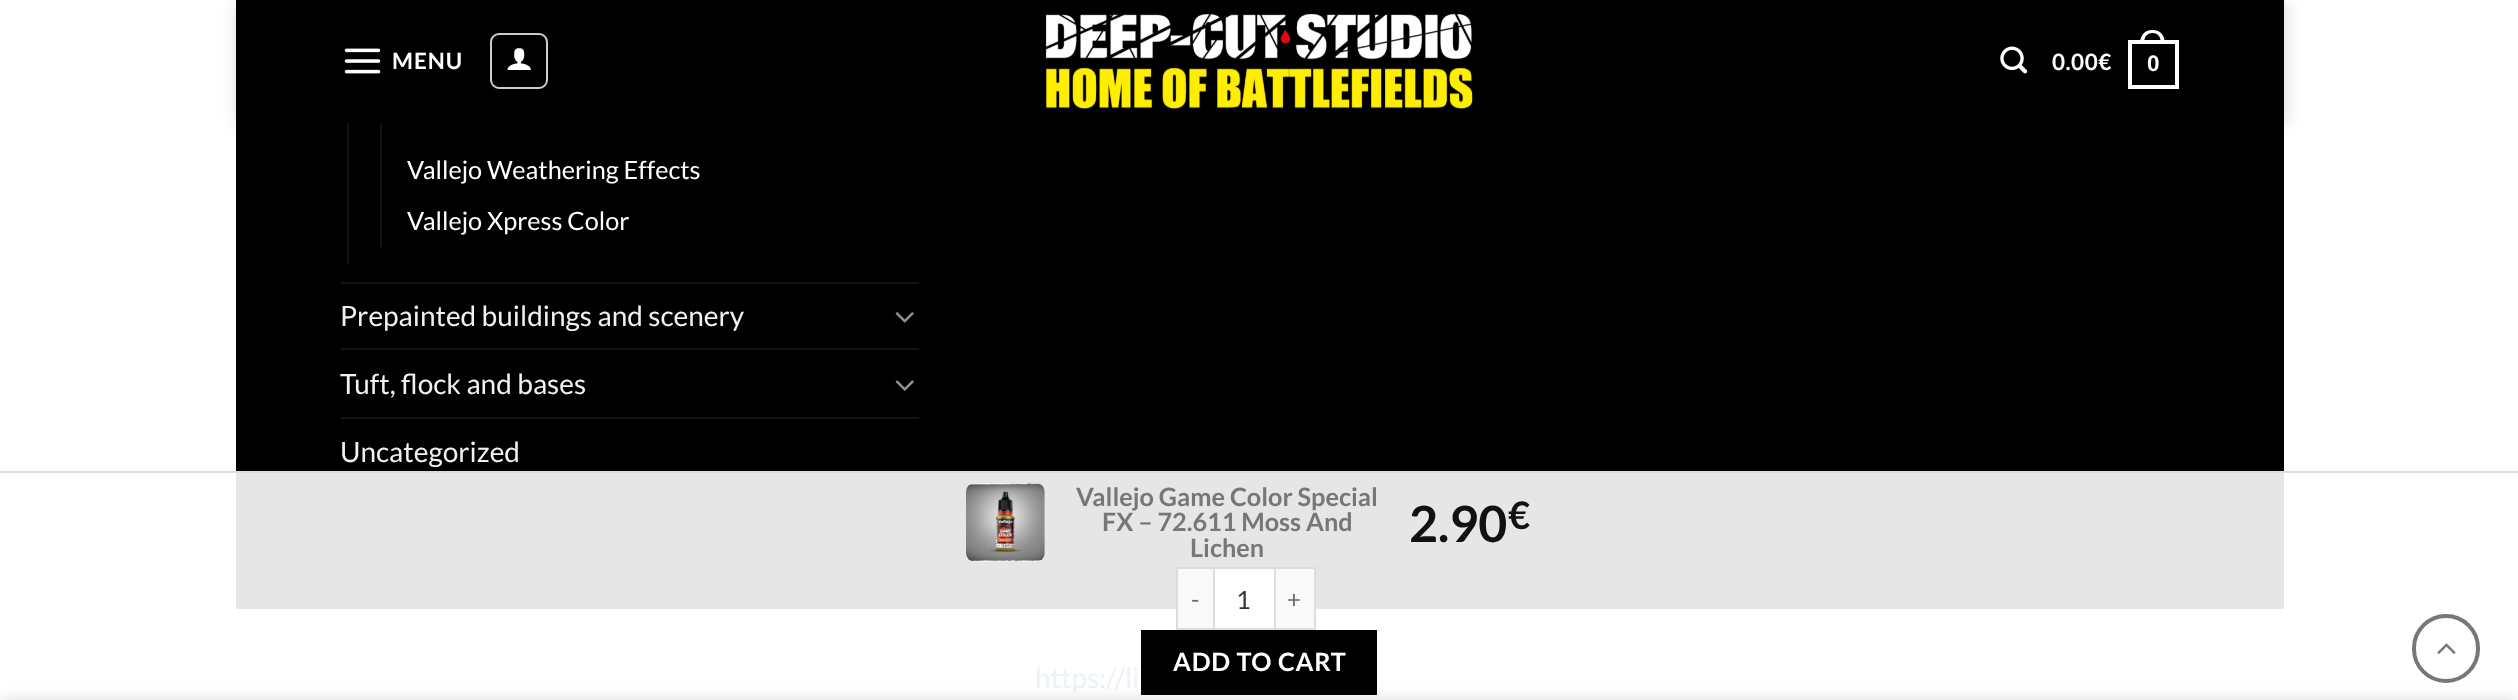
(async () => {
    const canvas = document.querySelector("canvas");
    canvas.width = 2518;
    canvas.height = 700;
    const context = canvas.getContext("2d");
    context.miterLimit = 4;
    context.fontKerning = "normal";
    function write(s, x, y, font, color) {
        context.font = font;
        context.fillStyle = color;
        context.fillText(s, x, y);
    }
    function block(x, y, w, h, color) {
        context.fillStyle = color;
        context.fillRect(x, y, w, h);
    }
    async function photo(src, x, y, w, h) {
        const img = new Image();
        img.src = src;
        await img.decode();
        context.drawImage(img, x, y, w, h);
    }

    block(0, 0, 2518, 700, "rgb(255, 255, 255)");
    block(236, 123, 2048, 348, "rgb(0, 0, 0)");
    block(347, 123, 2, 141, "rgb(20, 20, 20)");
    block(380, 123, 2, 124, "rgb(20, 20, 20)");
    context.fillStyle = "rgba(0, 0, 0, 0.15)";
    context.filter = "blur(9px)";
    context.beginPath();
    context.rect(238, 2, 2048, 122);
    context.fill();
    context.filter = "none";
    block(236, 0, 2048, 123, "rgb(0, 0, 0)");
    await photo("media/1.png", 344, 48, 37, 26);
    context.letterSpacing = "1px";
    write("MENU", 392, 69, "bold 22.5px Lato", "rgb(255, 255, 255)");
    context.beginPath();
    context.roundRect(491, 34, 56, 54, 8);
    context.strokeStyle = "rgb(204, 204, 204)";
    context.lineWidth = 2;
    context.stroke();
    await photo("media/2.png", 507, 48, 24, 22);
    await photo("media/3.png", 1045, 14, 428, 95);
    await photo("media/4.png", 2000, 46, 28, 28);
    context.letterSpacing = "0.5px";
    write("0.00€", 2052, 70, "bold 22.5px Lato", "rgb(255, 255, 255)");
    context.strokeStyle = "rgb(255, 255, 255)";
    context.lineWidth = 4;
    context.strokeRect(2130, 42, 47, 45);
    context.beginPath();
    context.moveTo(2152.5, 30);
    context.bezierCurveTo(2161, 30, 2165, 36, 2165, 44);
    context.lineTo(2140, 44);
    context.bezierCurveTo(2140, 36, 2144, 30, 2152.5, 30);
    context.closePath();
    context.moveTo(2152.5, 33);
    context.bezierCurveTo(2159, 33, 2161, 38, 2161, 44);
    context.lineTo(2144, 44);
    context.bezierCurveTo(2144, 38, 2146, 33, 2152.5, 33);
    context.closePath();
    context.fill("evenodd");
    write("0", 2147, 71, "bold 22.5px Liberation Sans", "rgb(255, 255, 255)");
    block(236, 473, 2048, 136, "rgb(230, 230, 230)");
    context.letterSpacing = "0px";
    write("Vallejo Weathering Effects", 407, 179, "25.25px Lato", "rgb(255, 255, 255)");
    write("Vallejo Xpress Color", 407, 230, "25.25px Lato", "rgb(255, 255, 255)");
    block(341, 282, 578, 2, "rgb(20, 20, 20)");
    write("Prepainted buildings and scenery", 340, 326, "28px Lato", "rgb(241, 241, 241)");
    await photo("media/5.png", 895, 312, 19, 11);
    block(341, 348, 578, 2, "rgb(20, 20, 20)");
    write("Tuft, flock and bases", 340, 394, "28px Lato", "rgb(241, 241, 241)");
    await photo("media/6.png", 895, 380, 19, 11);
    block(341, 417, 578, 2, "rgb(20, 20, 20)");
    write("Uncategorized", 340, 462, "28px Lato", "rgb(241, 241, 241)");
    write("https://li", 1035, 688, "28px Lato", "rgb(235, 242, 248)");
    context.beginPath();
    context.roundRect(2414, 616, 64, 65, 32);
    context.strokeStyle = "rgb(119, 119, 119)";
    context.stroke();
    await photo("media/7.png", 2437, 643, 19, 11);
    block(0, 471, 2518, 2, "rgb(221, 221, 221)");
    await photo("media/8.png", 966, 483, 79, 79);
    write("Vallejo Game Color Special", 1076, 506, "bold 25.25px Lato", "rgb(119, 119, 119)");
    write("FX – 72.611 Moss And", 1102, 531, "bold 25.25px Lato", "rgb(119, 119, 119)");
    write("Lichen", 1190, 557, "bold 25.25px Lato", "rgb(119, 119, 119)");
    write("2.90", 1409, 542, "bold 50px Lato", "rgb(17, 17, 17)");
    write("€", 1508, 529, "bold 38px Lato", "rgb(17, 17, 17)");
    block(1178, 569, 35, 59, "rgb(249, 249, 249)");
    block(1176, 567, 37, 2, "rgb(221, 221, 221)");
    block(1176, 628, 37, 2, "rgb(221, 221, 221)");
    block(1176, 567, 2, 63, "rgb(221, 221, 221)");
    context.letterSpacing = "1px";
    write("-", 1191, 608, "24px Lato", "rgb(102, 102, 102)");
    block(1215, 569, 59, 40, "rgb(255, 255, 255)");
    context.strokeStyle = "rgb(221, 221, 221)";
    context.lineWidth = 2;
    context.strokeRect(1214, 568, 61, 61);
    context.letterSpacing = "0px";
    write("1", 1236, 609, "25.25px Lato", "rgb(51, 51, 51)");
    block(1276, 569, 38, 59, "rgb(249, 249, 249)");
    block(1276, 567, 40, 2, "rgb(221, 221, 221)");
    block(1314, 567, 2, 63, "rgb(221, 221, 221)");
    block(1276, 628, 40, 2, "rgb(221, 221, 221)");
    context.letterSpacing = "1px";
    write("+", 1287, 608, "24px Lato", "rgb(102, 102, 102)");
    block(1141, 630, 236, 65, "rgb(0, 0, 0)");
    context.letterSpacing = "0.75px";
    write("ADD TO CART", 1173, 671, "bold 25.25px Lato", "rgb(255, 255, 255)");
    context.fillStyle = "rgba(0, 0, 0, 0.14)";
    context.filter = "blur(8px)";
    context.beginPath();
    context.rect(0, 700, 2518, 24);
    context.fill();
    context.filter = "none";
})();
